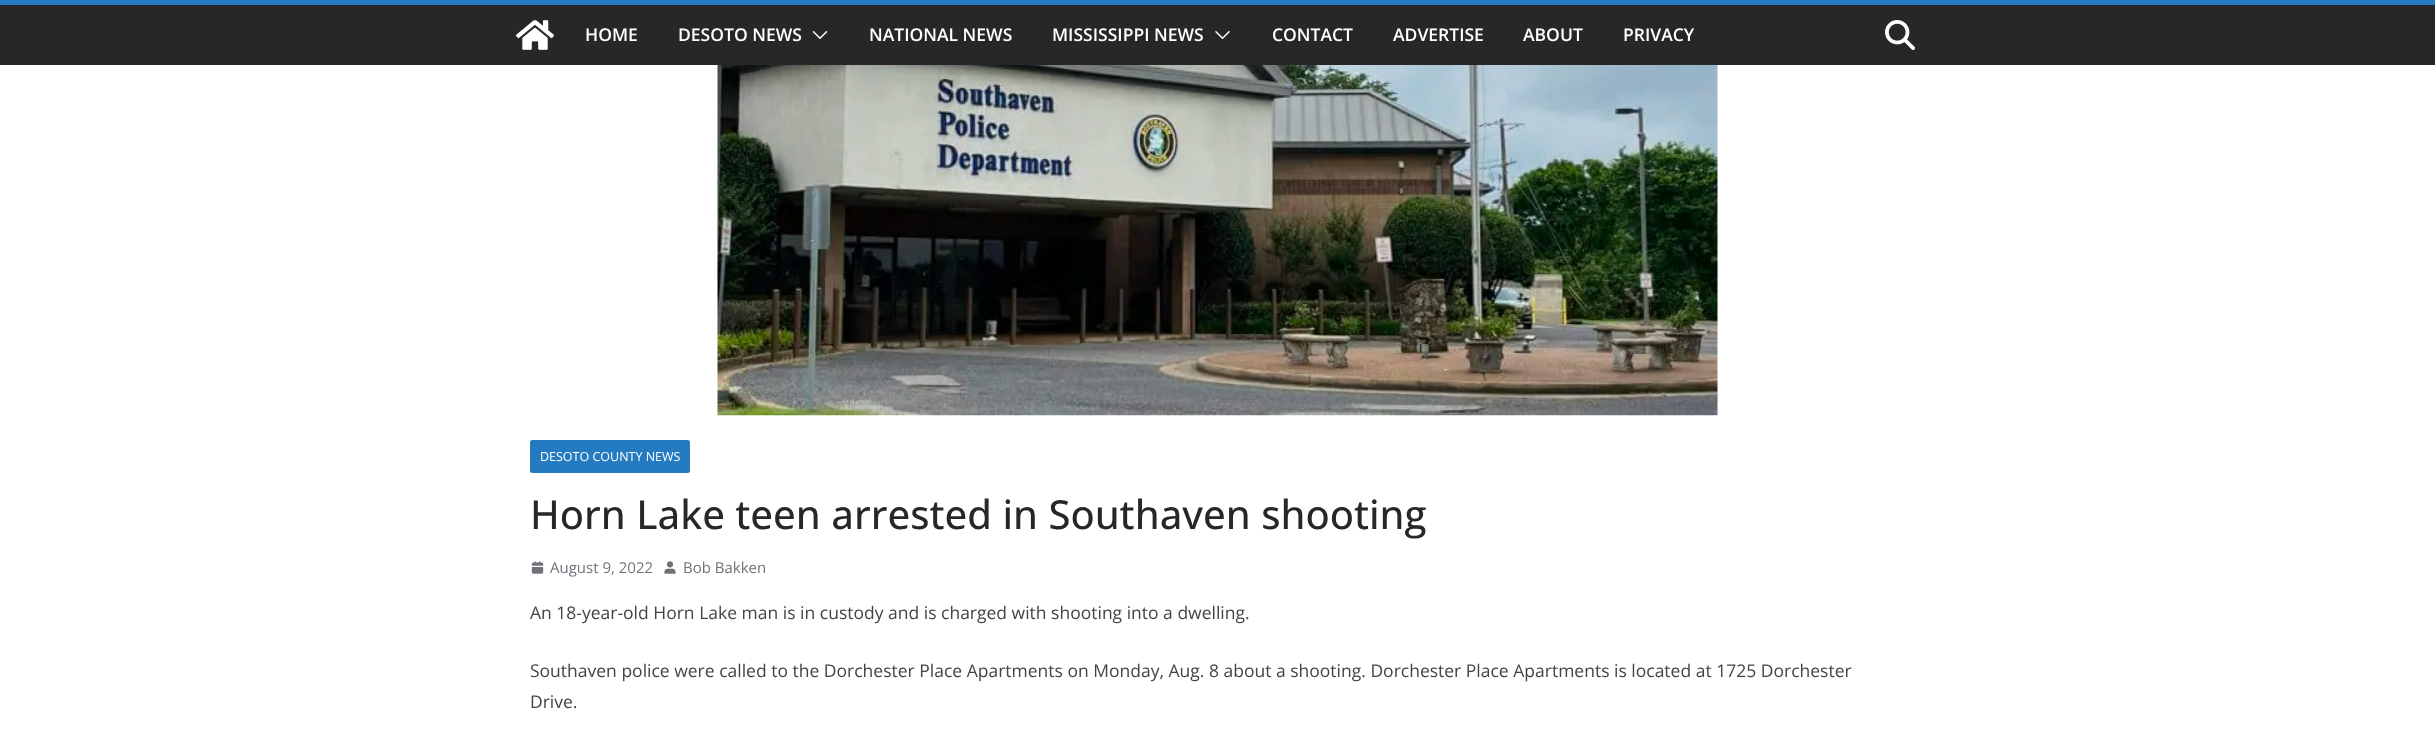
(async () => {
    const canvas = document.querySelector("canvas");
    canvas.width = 2435;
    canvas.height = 740;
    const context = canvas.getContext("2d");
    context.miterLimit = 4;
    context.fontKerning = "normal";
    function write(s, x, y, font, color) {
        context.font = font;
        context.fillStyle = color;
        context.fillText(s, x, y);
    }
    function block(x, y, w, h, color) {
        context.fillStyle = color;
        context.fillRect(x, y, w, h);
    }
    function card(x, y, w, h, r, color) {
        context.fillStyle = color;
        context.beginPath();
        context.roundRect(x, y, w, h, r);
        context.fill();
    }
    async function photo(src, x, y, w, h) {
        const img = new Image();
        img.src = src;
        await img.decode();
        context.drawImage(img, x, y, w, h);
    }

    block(0, 0, 2435, 740, "rgb(255, 255, 255)");
    block(0, 5, 2435, 60, "rgb(39, 39, 42)");
    block(0, 0, 2435, 5, "rgb(37, 123, 193)");
    await photo("media/1.png", 516, 20, 38, 30);
    write("HOME", 585, 41, "600 17.5px Open Sans", "rgb(255, 255, 255)");
    write("DESOTO NEWS", 678, 41, "600 17.5px Open Sans", "rgb(255, 255, 255)");
    await photo("media/2.png", 812, 31, 16, 8);
    write("NATIONAL NEWS", 869, 41, "600 17.5px Open Sans", "rgb(255, 255, 255)");
    write("MISSISSIPPI NEWS", 1052, 41, "600 17.5px Open Sans", "rgb(255, 255, 255)");
    await photo("media/3.png", 1215, 31, 15, 8);
    write("CONTACT", 1272, 41, "600 17.5px Open Sans", "rgb(255, 255, 255)");
    write("ADVERTISE", 1393, 41, "600 17.5px Open Sans", "rgb(255, 255, 255)");
    write("ABOUT", 1523, 41, "600 17.5px Open Sans", "rgb(255, 255, 255)");
    write("PRIVACY", 1623, 41, "600 17.5px Open Sans", "rgb(255, 255, 255)");
    await photo("media/4.png", 1885, 20, 30, 30);
    await photo("media/5.png", 717, 65, 1001, 351);
    card(530, 440, 160, 33, 2.5, "rgb(37, 123, 193)");
    write("DESOTO COUNTY NEWS", 540, 461, "12.5px Open Sans", "rgb(255, 255, 255)");
    write("Horn Lake teen arrested in Southaven shooting", 530, 529, "500 40px Open Sans", "rgb(39, 39, 42)");
    await photo("media/6.png", 531, 561, 13, 13);
    write("August 9, 2022", 550, 573, "15px Open Sans", "rgb(113, 113, 122)");
    await photo("media/7.png", 664, 561, 12, 13);
    write("Bob Bakken", 683, 573, "15px Open Sans", "rgb(113, 113, 122)");
    write("An 18-year-old Horn Lake man is in custody and is charged with shooting into a dwelling.", 530, 619, "17.5px Open Sans", "rgb(68, 68, 68)");
    write("Southaven police were called to the Dorchester Place Apartments on Monday, Aug. 8 about a shooting. Dorchester Place Apartments is located at 1725 Dorchester", 530, 677, "17.5px Open Sans", "rgb(68, 68, 68)");
    write("Drive.", 530, 708, "17.5px Open Sans", "rgb(68, 68, 68)");
})();
